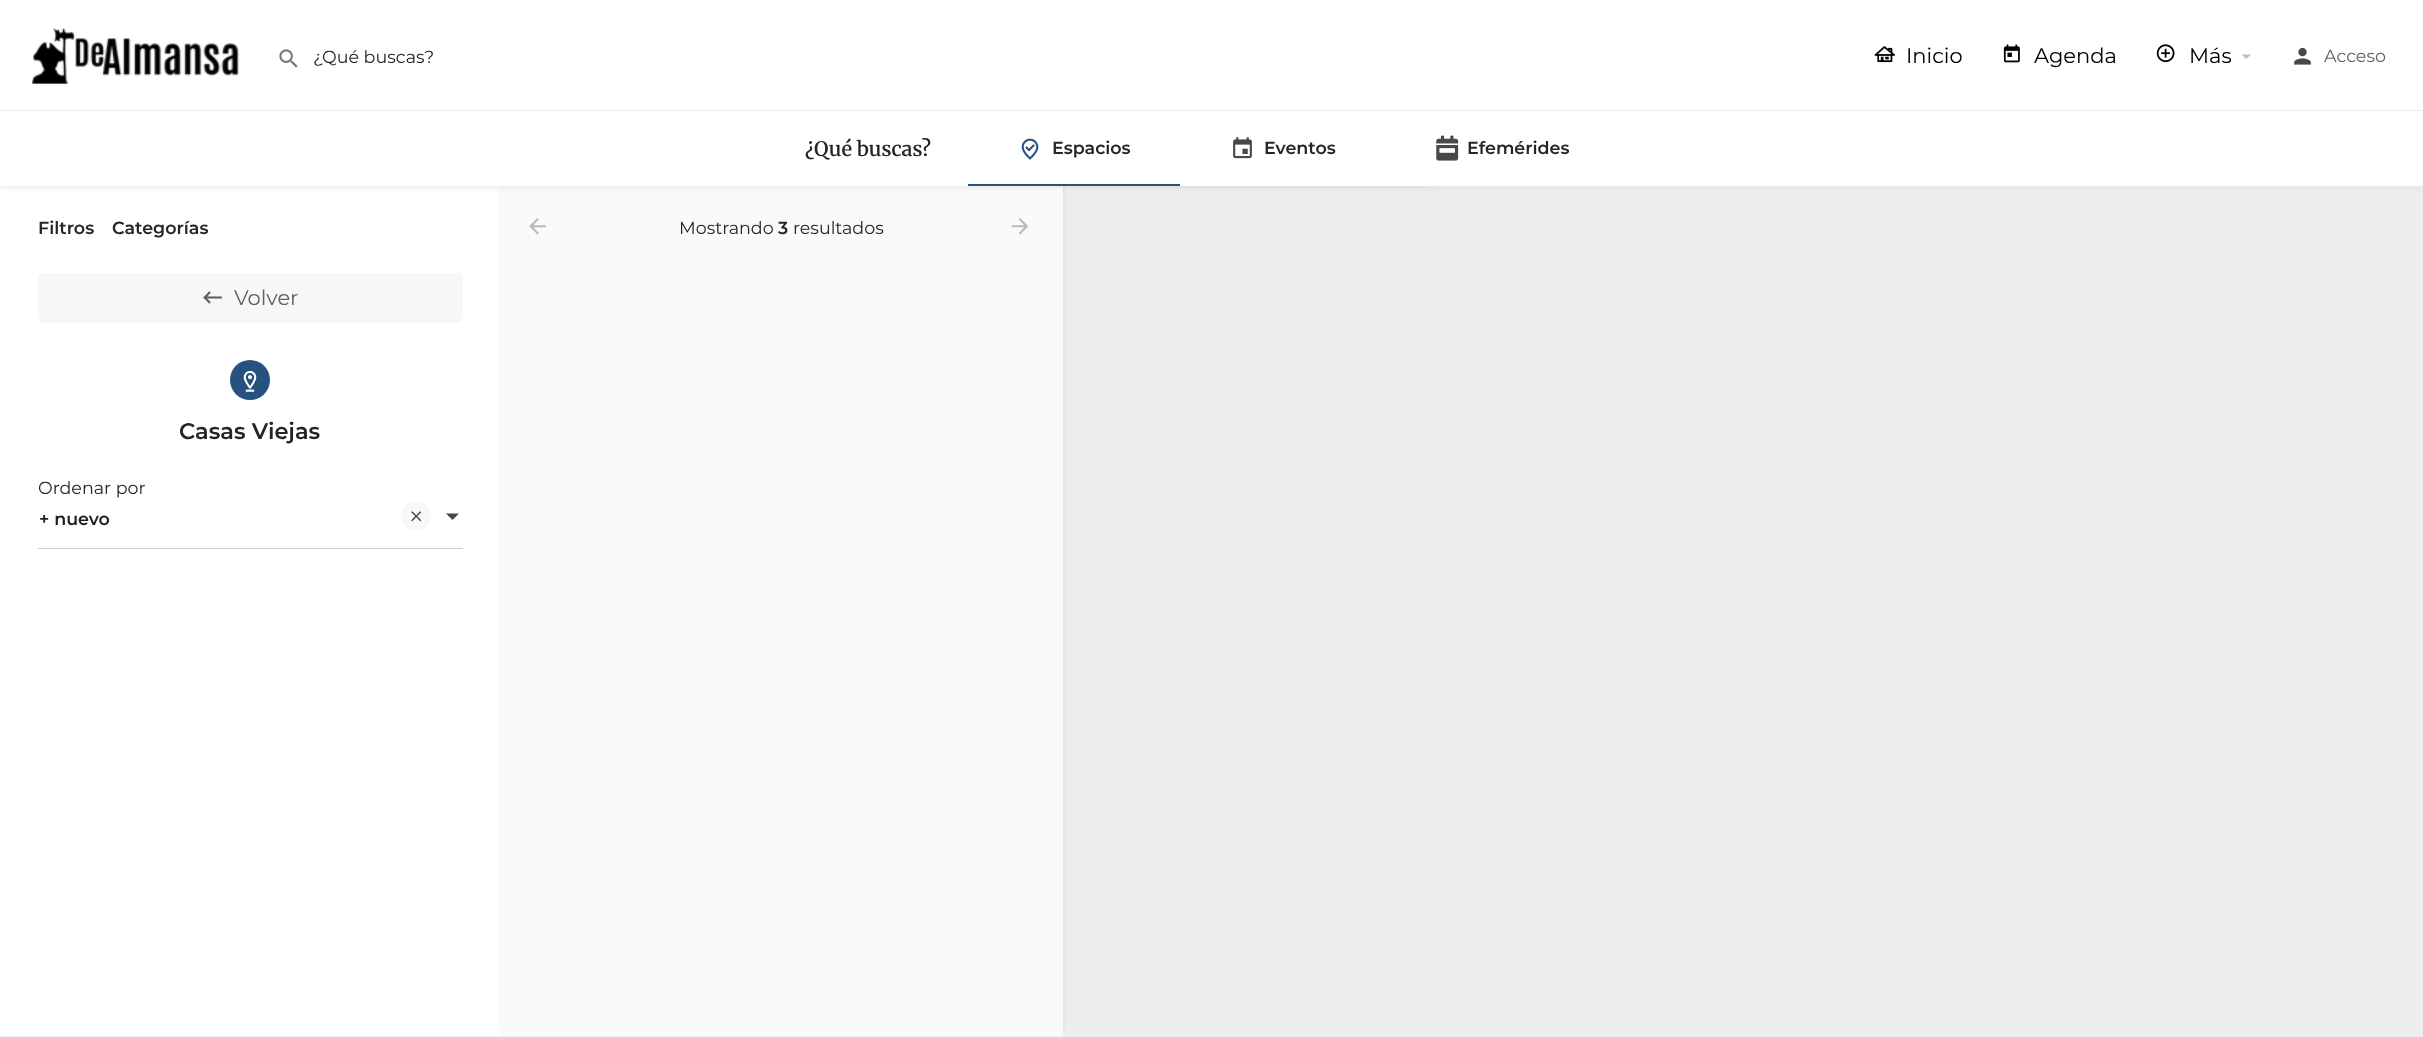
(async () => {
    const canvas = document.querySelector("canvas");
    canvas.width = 2423;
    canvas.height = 1037;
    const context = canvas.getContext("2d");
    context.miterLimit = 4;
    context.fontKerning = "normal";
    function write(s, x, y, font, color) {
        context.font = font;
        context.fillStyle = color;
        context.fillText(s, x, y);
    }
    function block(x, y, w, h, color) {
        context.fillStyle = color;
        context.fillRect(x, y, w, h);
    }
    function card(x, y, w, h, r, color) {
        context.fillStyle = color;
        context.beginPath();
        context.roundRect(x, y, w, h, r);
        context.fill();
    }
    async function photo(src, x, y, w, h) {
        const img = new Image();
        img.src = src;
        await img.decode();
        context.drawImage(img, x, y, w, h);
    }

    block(0, 0, 2423, 1037, "rgb(244, 244, 244)");
    block(0, 186, 500, 850, "rgb(255, 255, 255)");
    context.fillStyle = "rgba(0, 0, 0, 0.2)";
    context.filter = "blur(20.5px)";
    context.beginPath();
    context.roundRect(1075, 206, 348, 50, 4);
    context.fill();
    context.filter = "none";
    block(1063, 188, 1360, 849, "rgb(238, 238, 238)");
    context.fillStyle = "rgba(0, 0, 0, 0.07)";
    context.filter = "blur(2.5px)";
    context.beginPath();
    context.rect(501, 181, 563, 850);
    context.fill();
    context.filter = "none";
    block(500, 186, 563, 850, "rgb(250, 250, 250)");
    context.fillStyle = "rgba(0, 0, 0, 0.07)";
    context.filter = "blur(2.5px)";
    context.beginPath();
    context.rect(0, 113, 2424, 75);
    context.fill();
    context.filter = "none";
    block(0, 0, 2423, 110, "rgb(255, 255, 255)");
    block(0, 110, 2423, 1, "rgb(235, 235, 235)");
    await photo("media/1.png", 32, 28, 207, 56);
    await photo("media/2.png", 279, 49, 19, 19);
    write("¿Qué buscas?", 313, 63, "17.5px Montserrat", "rgb(29, 29, 35)");
    await photo("media/3.png", 1874, 46, 21, 17);
    write("Inicio", 1906, 63, "21px Montserrat", "rgb(0, 0, 0)");
    await photo("media/4.png", 2003, 44, 17, 19);
    write("Agenda", 2034, 63, "21px Montserrat", "rgb(0, 0, 0)");
    await photo("media/5.png", 2156, 44, 19, 19);
    write("Más", 2189, 63, "21px Montserrat", "rgb(0, 0, 0)");
    context.fillStyle = "rgb(189, 189, 191)";
    context.beginPath();
    context.moveTo(2241.5, 54.5);
    context.lineTo(2251, 54.5);
    context.lineTo(2246, 59);
    context.closePath();
    context.fill();
    await photo("media/6.png", 2294, 47, 17, 18);
    write("Acceso", 2324, 62, "17.5px Montserrat", "rgb(97, 97, 101)");
    block(0, 111, 2423, 75, "rgb(255, 255, 255)");
    write("¿Qué buscas?", 805, 156, "600 20px Merriweather", "rgb(36, 36, 41)");
    await photo("media/7.png", 1021, 138, 18, 22);
    write("Espacios", 1052, 154, "600 17.5px Montserrat", "rgb(36, 36, 41)");
    block(968, 184, 212, 2, "rgb(39, 82, 128)");
    await photo("media/8.png", 1233, 137, 19, 22);
    write("Eventos", 1264, 154, "600 17.5px Montserrat", "rgb(36, 36, 41)");
    await photo("media/9.png", 1436, 135, 23, 26);
    write("Efemérides", 1467, 154, "600 17.5px Montserrat", "rgb(36, 36, 41)");
    write("Filtros", 38, 234, "600 17.5px Montserrat", "rgb(36, 36, 41)");
    write("Categorías", 112, 234, "600 17.5px Montserrat", "rgb(36, 36, 41)");
    card(38, 273, 425, 50, 6, "rgb(246, 247, 246)");
    await photo("media/10.png", 203, 291, 19, 13);
    write("Volver", 234, 305, "21px Montserrat", "rgb(97, 97, 101)");
    context.fillStyle = "rgb(39, 82, 128)";
    context.beginPath();
    context.arc(250, 380, 20, 0, Math.PI * 2);
    context.fill();
    await photo("media/11.png", 243, 371, 14, 21);
    write("Casas Viejas", 179, 439, "600 22.5px Montserrat", "rgb(36, 36, 41)");
    write("Ordenar por", 38, 494, "17.5px Montserrat", "rgb(36, 36, 41)");
    block(38, 548, 425, 1, "rgb(204, 204, 204)");
    write("+ nuevo", 39, 525, "600 17.5px Montserrat", "rgb(29, 29, 35)");
    context.fillStyle = "rgb(248, 248, 248)";
    context.beginPath();
    context.arc(416, 516, 15, 0, Math.PI * 2);
    context.fill();
    await photo("media/12.png", 411, 511, 11, 11);
    context.fillStyle = "rgb(72, 72, 72)";
    context.beginPath();
    context.moveTo(446, 513.5);
    context.lineTo(459, 513.5);
    context.lineTo(452.5, 520);
    context.closePath();
    context.fill();
    await photo("media/13.png", 529, 218, 17, 17);
    write("Mostrando", 679, 234, "17.5px Montserrat", "rgb(36, 36, 41)");
    write("3", 778, 234, "600 17.5px Montserrat", "rgb(36, 36, 41)");
    write("resultados", 793, 234, "17.5px Montserrat", "rgb(36, 36, 41)");
    await photo("media/14.png", 1011, 218, 18, 17);
})();
